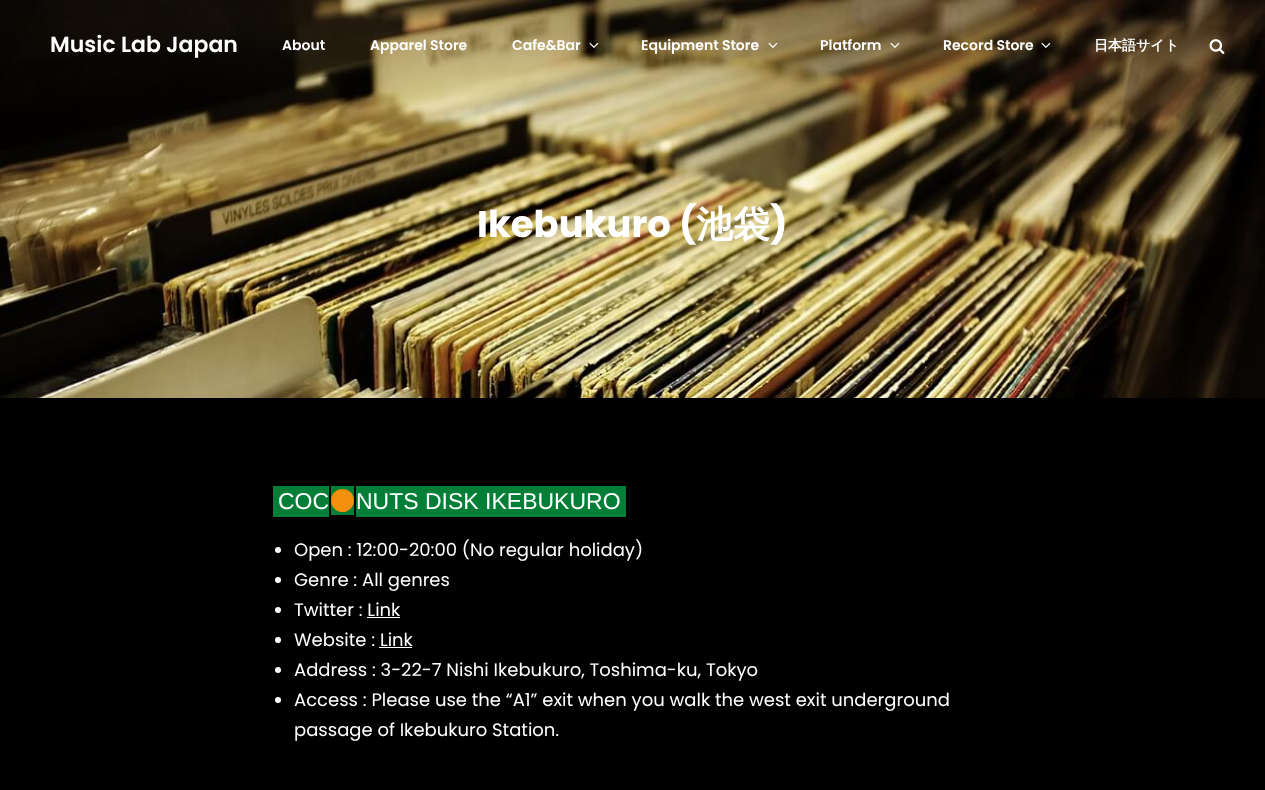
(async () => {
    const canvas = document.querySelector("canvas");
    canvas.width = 1265;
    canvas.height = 790;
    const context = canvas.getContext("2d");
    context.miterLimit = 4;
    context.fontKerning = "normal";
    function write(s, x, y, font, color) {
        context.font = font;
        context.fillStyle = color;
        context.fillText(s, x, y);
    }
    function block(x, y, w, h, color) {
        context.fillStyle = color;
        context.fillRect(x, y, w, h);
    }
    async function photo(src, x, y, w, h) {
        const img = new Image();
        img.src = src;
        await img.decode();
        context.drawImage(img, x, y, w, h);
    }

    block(0, 0, 1265, 790, "rgb(0, 0, 0)");
    await photo("media/6.png", 0, 0, 1265, 398);
    write("Music Lab Japan", 50, 52, "600 22px Poppins", "rgb(255, 255, 255)");
    write("About", 282, 50, "600 14px Poppins", "rgb(255, 255, 255)");
    write("Apparel Store", 370, 50, "600 14px Poppins", "rgb(255, 255, 255)");
    write("Cafe&Bar", 512, 50, "600 14px Poppins", "rgb(255, 255, 255)");
    await photo("media/1.png", 589, 42, 10, 6);
    write("Equipment Store", 641, 50, "600 14px Poppins", "rgb(255, 255, 255)");
    await photo("media/2.png", 768, 42, 10, 6);
    write("Platform", 820, 50, "600 14px Poppins", "rgb(255, 255, 255)");
    await photo("media/3.png", 890, 42, 10, 6);
    write("Record Store", 943, 50, "600 14px Poppins", "rgb(255, 255, 255)");
    await photo("media/4.png", 1041, 42, 10, 6);
    write("日本語サイト", 1094, 50, "bold 14px WenQuanYi Zen Hei", "rgb(255, 255, 255)");
    await photo("media/5.png", 1209, 39, 16, 15);
    write("Ikebukuro (", 477, 237, "bold 37px Poppins", "rgb(255, 255, 255)");
    write("池袋", 696, 237, "bold 37px WenQuanYi Zen Hei", "rgb(255, 255, 255)");
    write(")", 770, 237, "bold 37px Poppins", "rgb(255, 255, 255)");
    block(273, 486, 56, 31, "rgb(3, 126, 54)");
    write("COC", 278, 509, "23px Liberation Sans", "rgb(255, 255, 255)");
    block(331, 486, 23, 29, "rgb(3, 126, 54)");
    context.fillStyle = "rgb(244, 144, 12)";
    context.beginPath();
    context.arc(342.5, 500.5, 11.5, 0, Math.PI * 2);
    context.fill();
    block(356, 486, 270, 31, "rgb(3, 126, 54)");
    write("NUTS DISK IKEBUKURO", 356, 509, "23px Liberation Sans", "rgb(255, 255, 255)");
    context.beginPath();
    context.arc(278, 550, 3, 0, Math.PI * 2);
    context.fill();
    write("Open : 12:00-20:00 (No regular holiday)", 294, 556, "18px Poppins", "rgb(255, 255, 255)");
    context.beginPath();
    context.arc(278, 580, 3, 0, Math.PI * 2);
    context.fill();
    write("Genre : All genres", 294, 586, "18px Poppins", "rgb(255, 255, 255)");
    context.beginPath();
    context.arc(278, 610, 3, 0, Math.PI * 2);
    context.fill();
    write("Twitter : Link", 294, 616, "18px Poppins", "rgb(255, 255, 255)");
    block(367, 617, 33, 1, "rgb(255, 255, 255)");
    context.beginPath();
    context.arc(278, 640, 3, 0, Math.PI * 2);
    context.fill();
    write("Website : Link", 294, 646, "18px Poppins", "rgb(255, 255, 255)");
    block(379, 647, 33, 1, "rgb(255, 255, 255)");
    context.beginPath();
    context.arc(278, 670, 3, 0, Math.PI * 2);
    context.fill();
    write("Address : 3-22-7 Nishi Ikebukuro, Toshima-ku, Tokyo", 294, 676, "18px Poppins", "rgb(255, 255, 255)");
    context.beginPath();
    context.arc(278, 700, 3, 0, Math.PI * 2);
    context.fill();
    write("Access : Please use the “A1” exit when you walk the west exit underground", 294, 706, "18px Poppins", "rgb(255, 255, 255)");
    write("passage of Ikebukuro Station.", 294, 736, "18px Poppins", "rgb(255, 255, 255)");
})();
